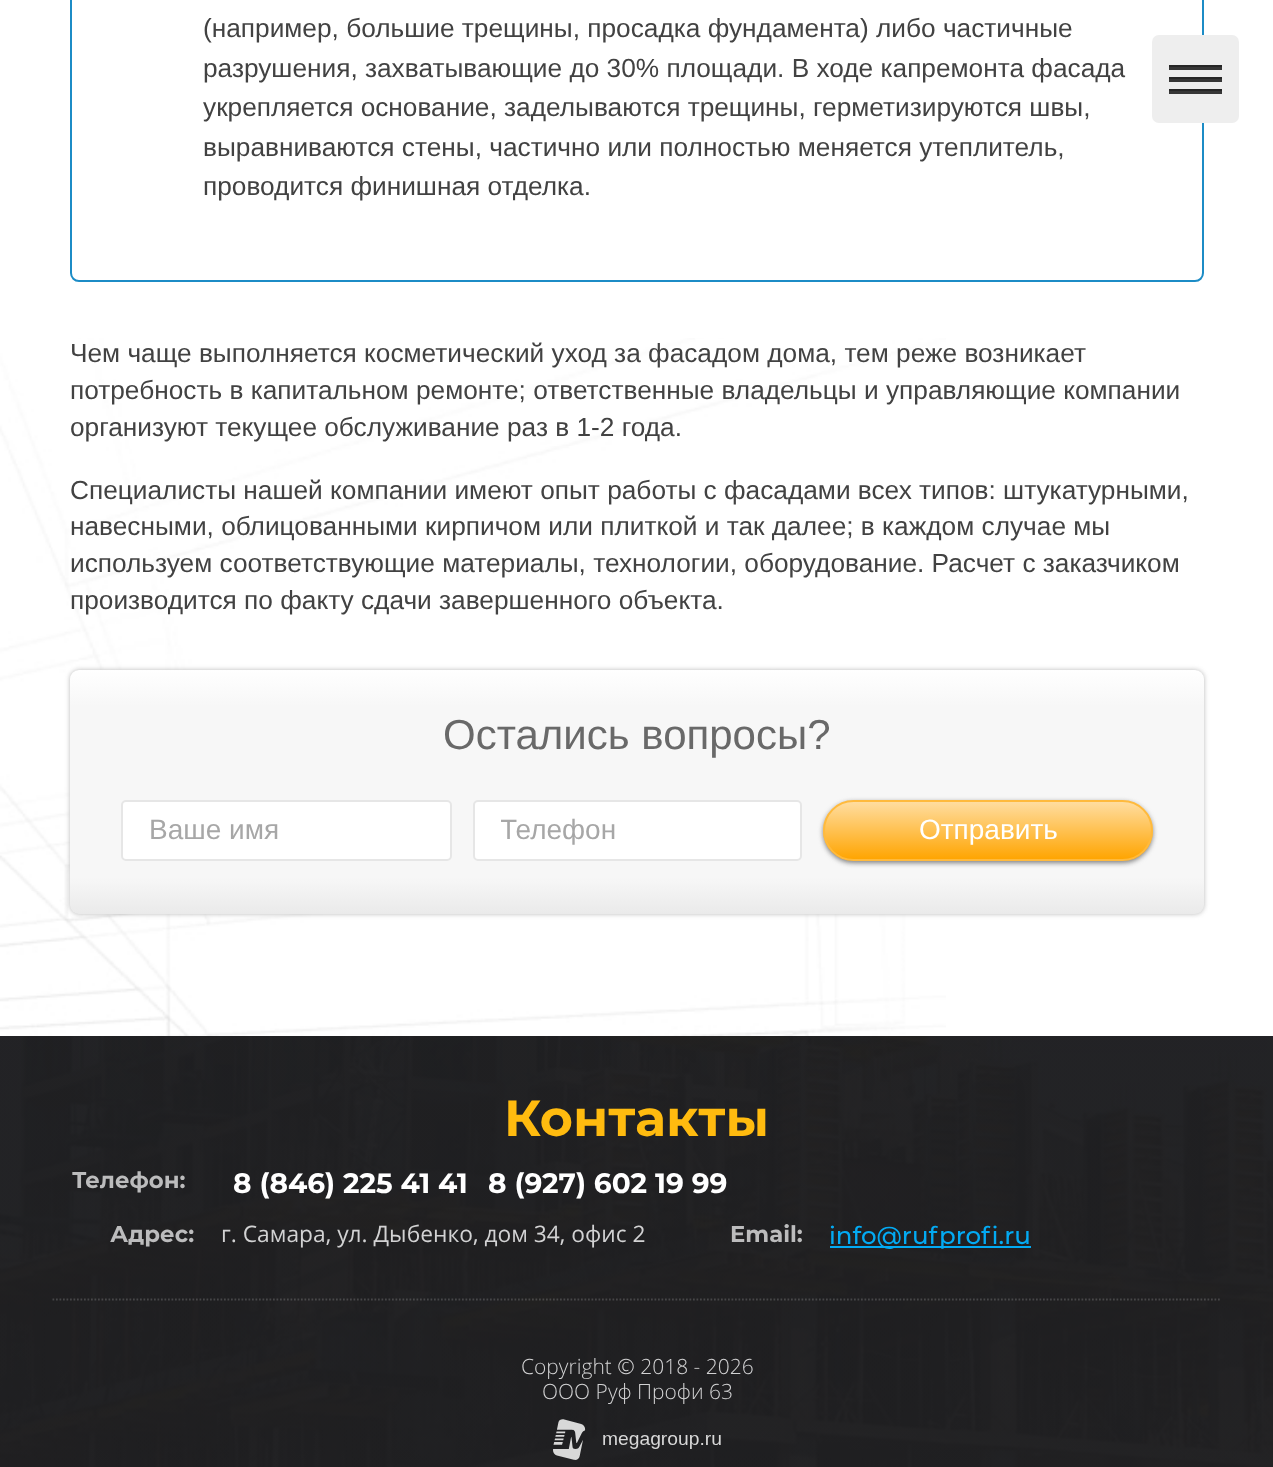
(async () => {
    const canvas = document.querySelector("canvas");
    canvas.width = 1273;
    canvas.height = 1467;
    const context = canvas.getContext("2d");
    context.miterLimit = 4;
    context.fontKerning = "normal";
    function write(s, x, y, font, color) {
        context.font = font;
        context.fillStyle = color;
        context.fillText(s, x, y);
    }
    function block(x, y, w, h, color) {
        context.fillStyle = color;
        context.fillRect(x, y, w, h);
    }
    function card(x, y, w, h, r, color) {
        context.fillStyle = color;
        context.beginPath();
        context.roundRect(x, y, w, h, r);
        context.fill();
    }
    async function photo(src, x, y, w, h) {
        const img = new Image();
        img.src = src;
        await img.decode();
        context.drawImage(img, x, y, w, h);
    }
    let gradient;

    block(0, 0, 1273, 1467, "rgb(255, 255, 255)");
    await photo("media/1.png", 0, 338, 946, 698);
    context.beginPath();
    context.moveTo(71, -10);
    context.lineTo(1203, -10);
    context.lineTo(1203, 273);
    context.bezierCurveTo(1203, 277.5, 1199.5, 281, 1195, 281);
    context.lineTo(79, 281);
    context.bezierCurveTo(74.5, 281, 71, 277.5, 71, 273);
    context.closePath();
    context.strokeStyle = "rgb(28, 140, 198)";
    context.lineWidth = 2;
    context.stroke();
    write("(например, большие трещины, просадка фундамента) либо частичные", 203, 37, "26.25px Liberation Sans", "rgb(66, 66, 66)");
    write("разрушения, захватывающие до 30% площади. В ходе капремонта фасада", 203, 77, "26.25px Liberation Sans", "rgb(66, 66, 66)");
    write("укрепляется основание, заделываются трещины, герметизируются швы,", 203, 116, "26.25px Liberation Sans", "rgb(66, 66, 66)");
    write("выравниваются стены, частично или полностью меняется утеплитель,", 203, 156, "26.25px Liberation Sans", "rgb(66, 66, 66)");
    write("проводится финишная отделка.", 203, 195, "26.25px Liberation Sans", "rgb(66, 66, 66)");
    write("Чем чаще выполняется косметический уход за фасадом дома, тем реже возникает", 70, 362, "26.25px Liberation Sans", "rgb(66, 66, 66)");
    write("потребность в капитальном ремонте; ответственные владельцы и управляющие компании", 70, 399, "26.25px Liberation Sans", "rgb(66, 66, 66)");
    write("организуют текущее обслуживание раз в 1-2 года.", 70, 436, "26.25px Liberation Sans", "rgb(66, 66, 66)");
    write("Специалисты нашей компании имеют опыт работы с фасадами всех типов: штукатурными,", 70, 499, "26.25px Liberation Sans", "rgb(66, 66, 66)");
    write("навесными, облицованными кирпичом или плиткой и так далее; в каждом случае мы", 70, 535, "26.25px Liberation Sans", "rgb(66, 66, 66)");
    write("используем соответствующие материалы, технологии, оборудование. Расчет с заказчиком", 70, 572, "26.25px Liberation Sans", "rgb(66, 66, 66)");
    write("производится по факту сдачи завершенного объекта.", 70, 609, "26.25px Liberation Sans", "rgb(66, 66, 66)");
    context.fillStyle = "rgb(185, 185, 185)";
    context.filter = "blur(2.5px)";
    context.beginPath();
    context.roundRect(70, 670, 1134, 244, 9);
    context.fill();
    context.filter = "none";
    gradient = context.createLinearGradient(637, 670, 637, 914);
    gradient.addColorStop(0, "rgb(255, 255, 255)");
    gradient.addColorStop(0.15, "rgb(247, 247, 247)");
    gradient.addColorStop(0.85, "rgb(247, 247, 247)");
    gradient.addColorStop(1, "rgb(234, 234, 234)");
    context.fillStyle = gradient;
    context.beginPath();
    context.roundRect(70, 670, 1134, 244, 9);
    context.fill();
    write("Остались вопросы?", 443, 749, "42px Liberation Sans", "rgb(105, 105, 105)");
    context.fillStyle = "rgb(255, 255, 255)";
    context.beginPath();
    context.roundRect(122, 801, 329, 59, 4);
    context.fill();
    context.strokeStyle = "rgb(230, 230, 230)";
    context.stroke();
    write("Ваше имя", 149, 839, "28px Liberation Sans", "rgb(167, 167, 167)");
    context.fillStyle = "rgb(255, 255, 255)";
    context.beginPath();
    context.roundRect(474, 801, 327, 59, 4);
    context.fill();
    context.stroke();
    context.save();
    context.beginPath();
    context.rect(501, 814, 273, 31);
    context.clip();
    write("Телефон", 500, 839, "28px Liberation Sans", "rgb(167, 167, 167)");
    context.restore();
    context.fillStyle = "rgb(128, 128, 128)";
    context.filter = "blur(2.5px)";
    context.beginPath();
    context.roundRect(823, 802, 330, 61, 30.5);
    context.fill();
    context.filter = "none";
    context.save();
    context.beginPath();
    context.roundRect(823, 800, 330, 61, 30.5);
    context.clip();
    gradient = context.createLinearGradient(988, 802, 988, 859);
    gradient.addColorStop(0, "rgb(255, 221, 160)");
    gradient.addColorStop(1, "rgb(255, 165, 2)");
    context.fillStyle = gradient;
    context.fillRect(823, 802, 330, 57);
    context.restore();
    context.beginPath();
    context.roundRect(824, 801, 328, 59, 29.5);
    context.strokeStyle = "rgb(255, 186, 61)";
    context.stroke();
    write("Отправить", 919, 839, "28px Liberation Sans", "rgb(255, 255, 255)");
    card(1152, 35, 87, 88, 7, "rgb(238, 238, 238)");
    block(1169, 67, 53, 3, "rgb(54, 54, 54)");
    block(1169, 65, 53, 2, "rgb(38, 38, 38)");
    block(1169, 79, 53, 3, "rgb(54, 54, 54)");
    block(1169, 77, 53, 2, "rgb(38, 38, 38)");
    block(1169, 91, 53, 3, "rgb(54, 54, 54)");
    block(1169, 89, 53, 2, "rgb(38, 38, 38)");
    await photo("media/2.png", 0, 1036, 1273, 431);
    context.beginPath();
    context.moveTo(52.5, 1299.5);
    context.lineTo(1221.5, 1299.5);
    context.strokeStyle = "rgba(230, 230, 230, 0.2)";
    context.lineWidth = 1.8;
    context.setLineDash([1.75, 1.75]);
    context.stroke();
    write("Контакты", 504, 1136, "bold 50.75px Montserrat", "rgb(255, 187, 15)");
    write("Телефон:", 72, 1188, "bold 22.75px Montserrat", "rgb(188, 188, 189)");
    write("8 (846) 225 41 41", 233, 1193, "bold 28px Montserrat", "rgb(255, 255, 255)");
    write("8 (927) 602 19 99", 488, 1193, "bold 28px Montserrat", "rgb(255, 255, 255)");
    write("Адрес:", 110, 1242, "bold 22.75px Montserrat", "rgb(188, 188, 189)");
    write("г. Самара, ул. Дыбенко, дом 34, офис 2", 221, 1242, "22.75px Open Sans", "rgb(210, 210, 211)");
    write("Email:", 730, 1242, "bold 22.75px Montserrat", "rgb(188, 188, 189)");
    block(830, 1246, 201, 2, "rgb(3, 170, 243)");
    write("info@rufprofi.ru", 829, 1244, "500 24.5px Montserrat", "rgb(3, 170, 243)");
    write("Copyright © 2018 - 2026", 521, 1374, "300 21px Open Sans", "rgb(210, 210, 211)");
    write("ООО Руф Профи 63", 542, 1399, "300 21px Open Sans", "rgb(210, 210, 211)");
    await photo("media/3.png", 553, 1419, 168, 41);
})();
